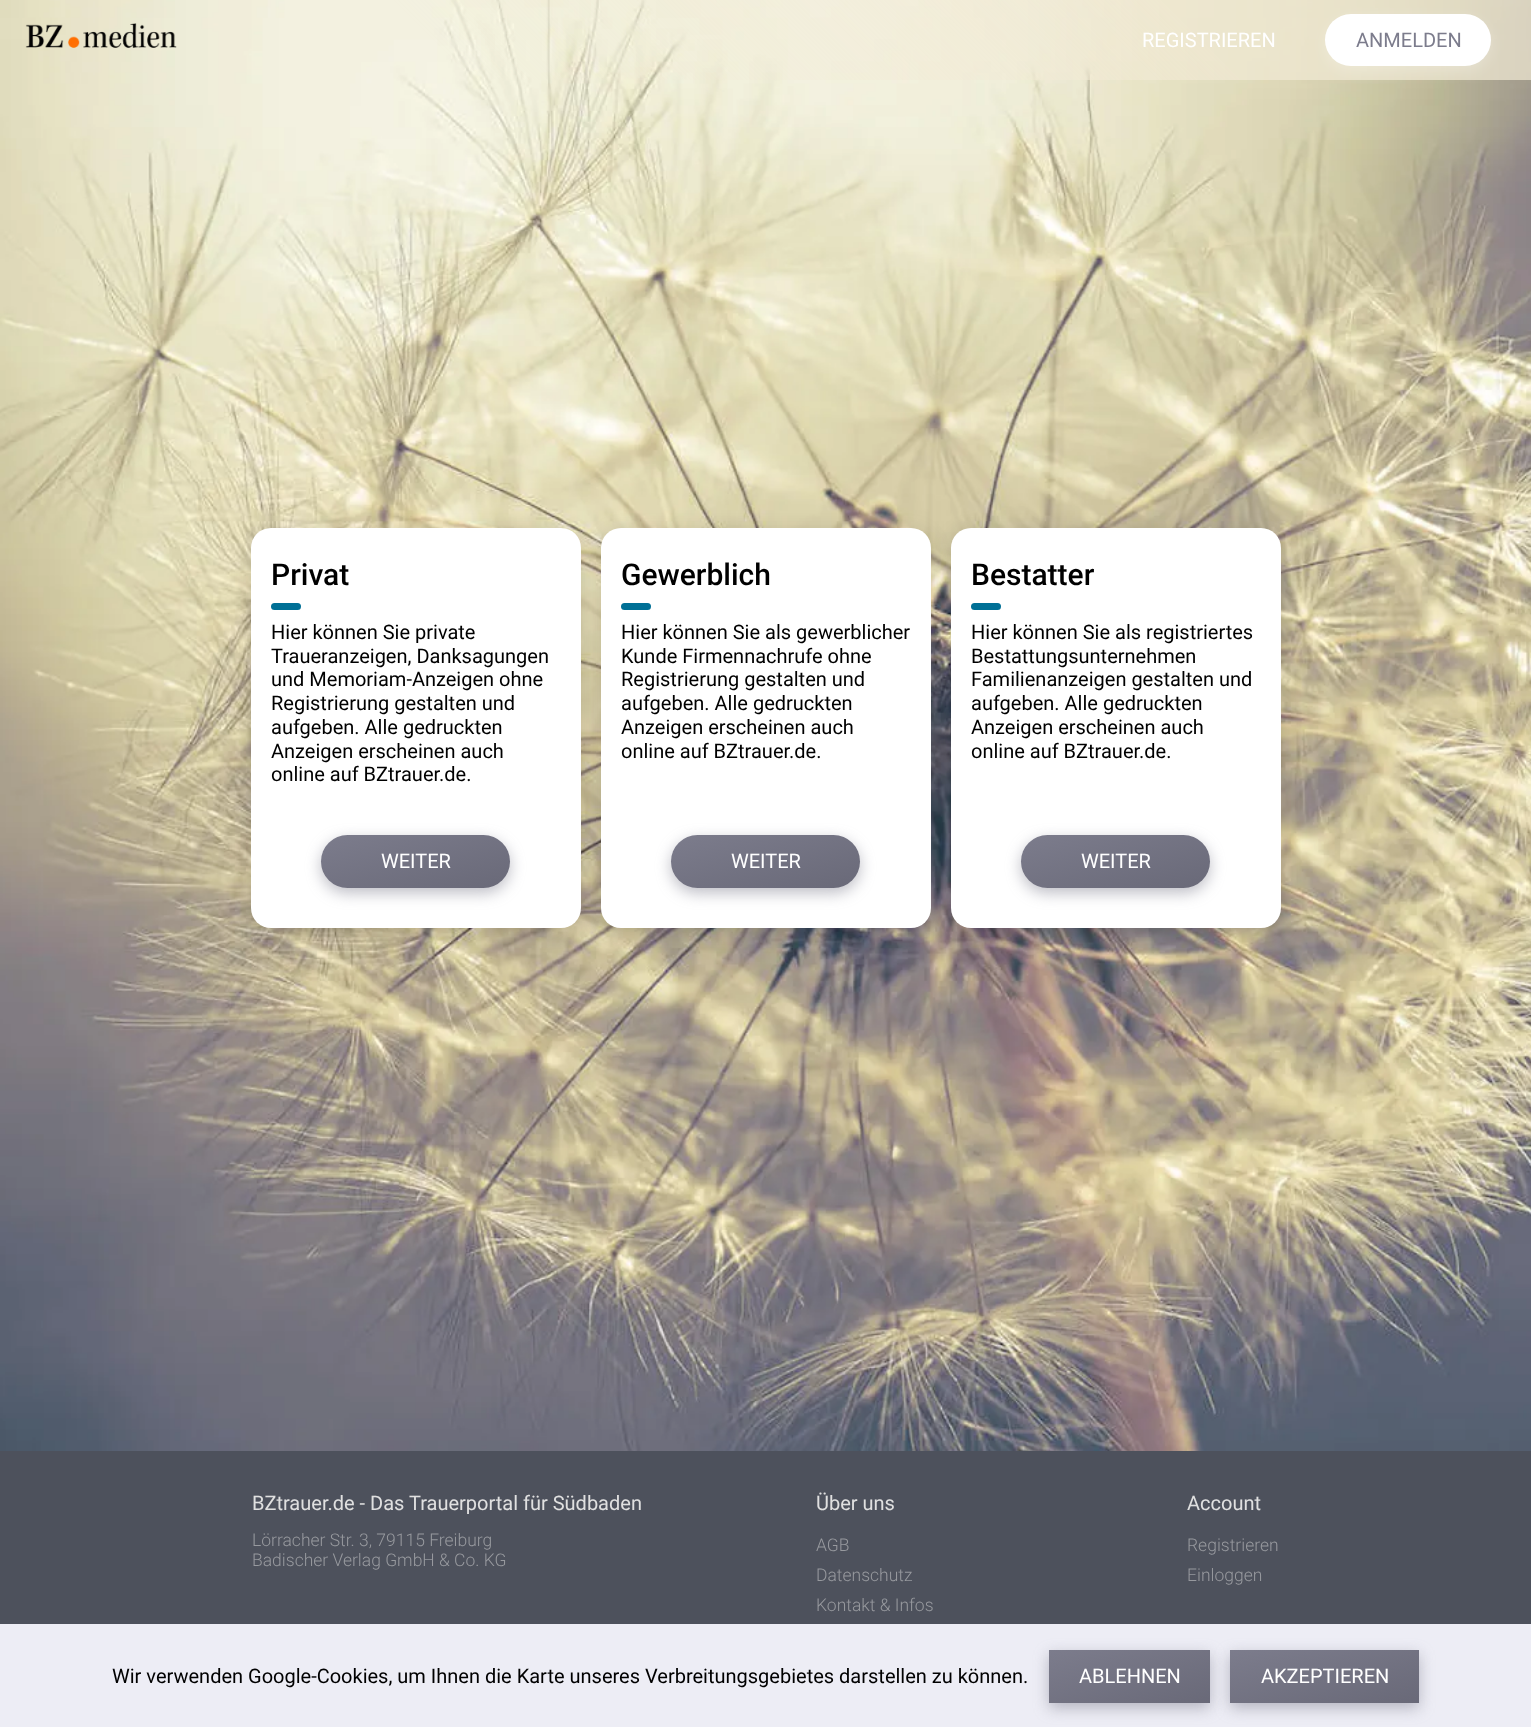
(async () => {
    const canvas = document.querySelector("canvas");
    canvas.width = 1531;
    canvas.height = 1727;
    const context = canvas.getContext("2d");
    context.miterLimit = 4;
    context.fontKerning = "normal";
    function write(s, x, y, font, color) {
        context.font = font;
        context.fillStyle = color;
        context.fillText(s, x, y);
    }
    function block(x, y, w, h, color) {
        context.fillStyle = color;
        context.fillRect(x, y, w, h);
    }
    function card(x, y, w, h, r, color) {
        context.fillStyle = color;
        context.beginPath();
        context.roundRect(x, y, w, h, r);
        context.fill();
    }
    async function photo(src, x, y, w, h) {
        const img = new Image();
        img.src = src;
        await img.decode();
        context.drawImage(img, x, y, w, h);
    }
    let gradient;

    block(0, 0, 1531, 1727, "rgb(255, 255, 255)");
    await photo("media/2.png", 0, 0, 1531, 1451);
    await photo("media/1.png", 25, 23, 152, 25);
    write("REGISTRIEREN", 1142, 47, "20px Roboto", "rgb(255, 255, 255)");
    context.fillStyle = "rgba(255, 255, 255, 0.25)";
    context.filter = "blur(7.5px)";
    context.beginPath();
    context.roundRect(1325, 19, 166, 52, 26);
    context.fill();
    context.filter = "none";
    card(1325, 14, 166, 52, 26, "rgb(255, 255, 255)");
    write("ANMELDEN", 1356, 47, "20px Roboto", "rgb(124, 124, 140)");
    context.fillStyle = "rgba(0, 0, 0, 0.15)";
    context.filter = "blur(10px)";
    context.beginPath();
    context.roundRect(251, 533, 330, 400, 20);
    context.fill();
    context.filter = "none";
    card(251, 528, 330, 400, 20, "rgb(255, 255, 255)");
    write("Privat", 271, 585, "500 30px Roboto", "rgb(0, 0, 0)");
    card(271, 603, 30, 7, 3.5, "rgb(0, 112, 150)");
    write("Hier können Sie private", 271, 639, "20px Roboto", "rgb(0, 0, 0)");
    write("Traueranzeigen, Danksagungen", 271, 663, "20px Roboto", "rgb(0, 0, 0)");
    write("und Memoriam-Anzeigen ohne", 271, 686, "20px Roboto", "rgb(0, 0, 0)");
    write("Registrierung gestalten und", 271, 710, "20px Roboto", "rgb(0, 0, 0)");
    write("aufgeben. Alle gedruckten", 271, 734, "20px Roboto", "rgb(0, 0, 0)");
    write("Anzeigen erscheinen auch", 271, 758, "20px Roboto", "rgb(0, 0, 0)");
    write("online auf BZtrauer.de.", 271, 781, "20px Roboto", "rgb(0, 0, 0)");
    context.fillStyle = "rgba(124, 124, 140, 0.5)";
    context.filter = "blur(7.5px)";
    context.beginPath();
    context.roundRect(321, 840, 189, 53, 26.5);
    context.fill();
    context.filter = "none";
    gradient = context.createLinearGradient(402, 813, 429, 910);
    gradient.addColorStop(0, "rgb(124, 124, 140)");
    gradient.addColorStop(1, "rgb(105, 105, 120)");
    context.fillStyle = gradient;
    context.beginPath();
    context.roundRect(321, 835, 189, 53, 26.5);
    context.fill();
    write("WEITER", 381, 868, "20px Roboto", "rgb(255, 255, 255)");
    context.fillStyle = "rgba(0, 0, 0, 0.15)";
    context.filter = "blur(10px)";
    context.beginPath();
    context.roundRect(601, 533, 330, 400, 20);
    context.fill();
    context.filter = "none";
    card(601, 528, 330, 400, 20, "rgb(255, 255, 255)");
    write("Gewerblich", 621, 585, "500 30px Roboto", "rgb(0, 0, 0)");
    card(621, 603, 30, 7, 3.5, "rgb(0, 112, 150)");
    write("Hier können Sie als gewerblicher", 621, 639, "20px Roboto", "rgb(0, 0, 0)");
    write("Kunde Firmennachrufe ohne", 621, 663, "20px Roboto", "rgb(0, 0, 0)");
    write("Registrierung gestalten und", 621, 686, "20px Roboto", "rgb(0, 0, 0)");
    write("aufgeben. Alle gedruckten", 621, 710, "20px Roboto", "rgb(0, 0, 0)");
    write("Anzeigen erscheinen auch", 621, 734, "20px Roboto", "rgb(0, 0, 0)");
    write("online auf BZtrauer.de.", 621, 758, "20px Roboto", "rgb(0, 0, 0)");
    context.fillStyle = "rgba(124, 124, 140, 0.5)";
    context.filter = "blur(7.5px)";
    context.beginPath();
    context.roundRect(671, 840, 189, 53, 26.5);
    context.fill();
    context.filter = "none";
    gradient = context.createLinearGradient(752, 813, 779, 910);
    gradient.addColorStop(0, "rgb(124, 124, 140)");
    gradient.addColorStop(1, "rgb(105, 105, 120)");
    context.fillStyle = gradient;
    context.beginPath();
    context.roundRect(671, 835, 189, 53, 26.5);
    context.fill();
    write("WEITER", 731, 868, "20px Roboto", "rgb(255, 255, 255)");
    context.fillStyle = "rgba(0, 0, 0, 0.15)";
    context.filter = "blur(10px)";
    context.beginPath();
    context.roundRect(951, 533, 330, 400, 20);
    context.fill();
    context.filter = "none";
    card(951, 528, 330, 400, 20, "rgb(255, 255, 255)");
    write("Bestatter", 971, 585, "500 30px Roboto", "rgb(0, 0, 0)");
    card(971, 603, 30, 7, 3.5, "rgb(0, 112, 150)");
    write("Hier können Sie als registriertes", 971, 639, "20px Roboto", "rgb(0, 0, 0)");
    write("Bestattungsunternehmen", 971, 663, "20px Roboto", "rgb(0, 0, 0)");
    write("Familienanzeigen gestalten und", 971, 686, "20px Roboto", "rgb(0, 0, 0)");
    write("aufgeben. Alle gedruckten", 971, 710, "20px Roboto", "rgb(0, 0, 0)");
    write("Anzeigen erscheinen auch", 971, 734, "20px Roboto", "rgb(0, 0, 0)");
    write("online auf BZtrauer.de.", 971, 758, "20px Roboto", "rgb(0, 0, 0)");
    context.fillStyle = "rgba(124, 124, 140, 0.5)";
    context.filter = "blur(7.5px)";
    context.beginPath();
    context.roundRect(1021, 840, 189, 53, 26.5);
    context.fill();
    context.filter = "none";
    gradient = context.createLinearGradient(1102, 813, 1129, 910);
    gradient.addColorStop(0, "rgb(124, 124, 140)");
    gradient.addColorStop(1, "rgb(105, 105, 120)");
    context.fillStyle = gradient;
    context.beginPath();
    context.roundRect(1021, 835, 189, 53, 26.5);
    context.fill();
    write("WEITER", 1081, 868, "20px Roboto", "rgb(255, 255, 255)");
    block(0, 1451, 1531, 173, "rgb(77, 81, 92)");
    write("BZtrauer.de - Das Trauerportal für Südbaden", 252, 1510, "20px Roboto", "rgb(224, 224, 224)");
    write("Lörracher Str. 3, 79115 Freiburg", 252, 1546, "300 17.5px Roboto", "rgb(151, 153, 158)");
    write("Badischer Verlag GmbH & Co. KG", 252, 1566, "300 17.5px Roboto", "rgb(151, 153, 158)");
    write("Über uns", 816, 1510, "20px Roboto", "rgb(224, 224, 224)");
    write("AGB", 816, 1551, "300 17.5px Roboto", "rgb(151, 153, 158)");
    write("Datenschutz", 816, 1581, "300 17.5px Roboto", "rgb(151, 153, 158)");
    write("Kontakt & Infos", 816, 1611, "300 17.5px Roboto", "rgb(151, 153, 158)");
    write("Account", 1187, 1510, "20px Roboto", "rgb(224, 224, 224)");
    write("Registrieren", 1187, 1551, "300 17.5px Roboto", "rgb(151, 153, 158)");
    write("Einloggen", 1187, 1581, "300 17.5px Roboto", "rgb(151, 153, 158)");
    block(0, 1624, 1531, 103, "rgb(237, 237, 245)");
    write("Wir verwenden Google-Cookies, um Ihnen die Karte unseres Verbreitungsgebietes darstellen zu können.", 112, 1683, "20px Roboto", "rgb(0, 0, 0)");
    context.fillStyle = "rgba(124, 124, 140, 0.5)";
    context.filter = "blur(7.5px)";
    context.beginPath();
    context.rect(1049, 1655, 161, 53);
    context.fill();
    context.filter = "none";
    gradient = context.createLinearGradient(1114, 1629, 1145, 1724);
    gradient.addColorStop(0, "rgb(124, 124, 140)");
    gradient.addColorStop(1, "rgb(105, 105, 120)");
    context.fillStyle = gradient;
    context.fillRect(1049, 1650, 161, 53);
    write("ABLEHNEN", 1079, 1683, "20px Roboto", "rgb(255, 255, 255)");
    context.fillStyle = "rgba(124, 124, 140, 0.5)";
    context.filter = "blur(7.5px)";
    context.beginPath();
    context.rect(1230, 1655, 189, 53);
    context.fill();
    context.filter = "none";
    gradient = context.createLinearGradient(1311, 1628, 1338, 1725);
    gradient.addColorStop(0, "rgb(124, 124, 140)");
    gradient.addColorStop(1, "rgb(105, 105, 120)");
    context.fillStyle = gradient;
    context.fillRect(1230, 1650, 189, 53);
    write("AKZEPTIEREN", 1261, 1683, "20px Roboto", "rgb(255, 255, 255)");
})();
